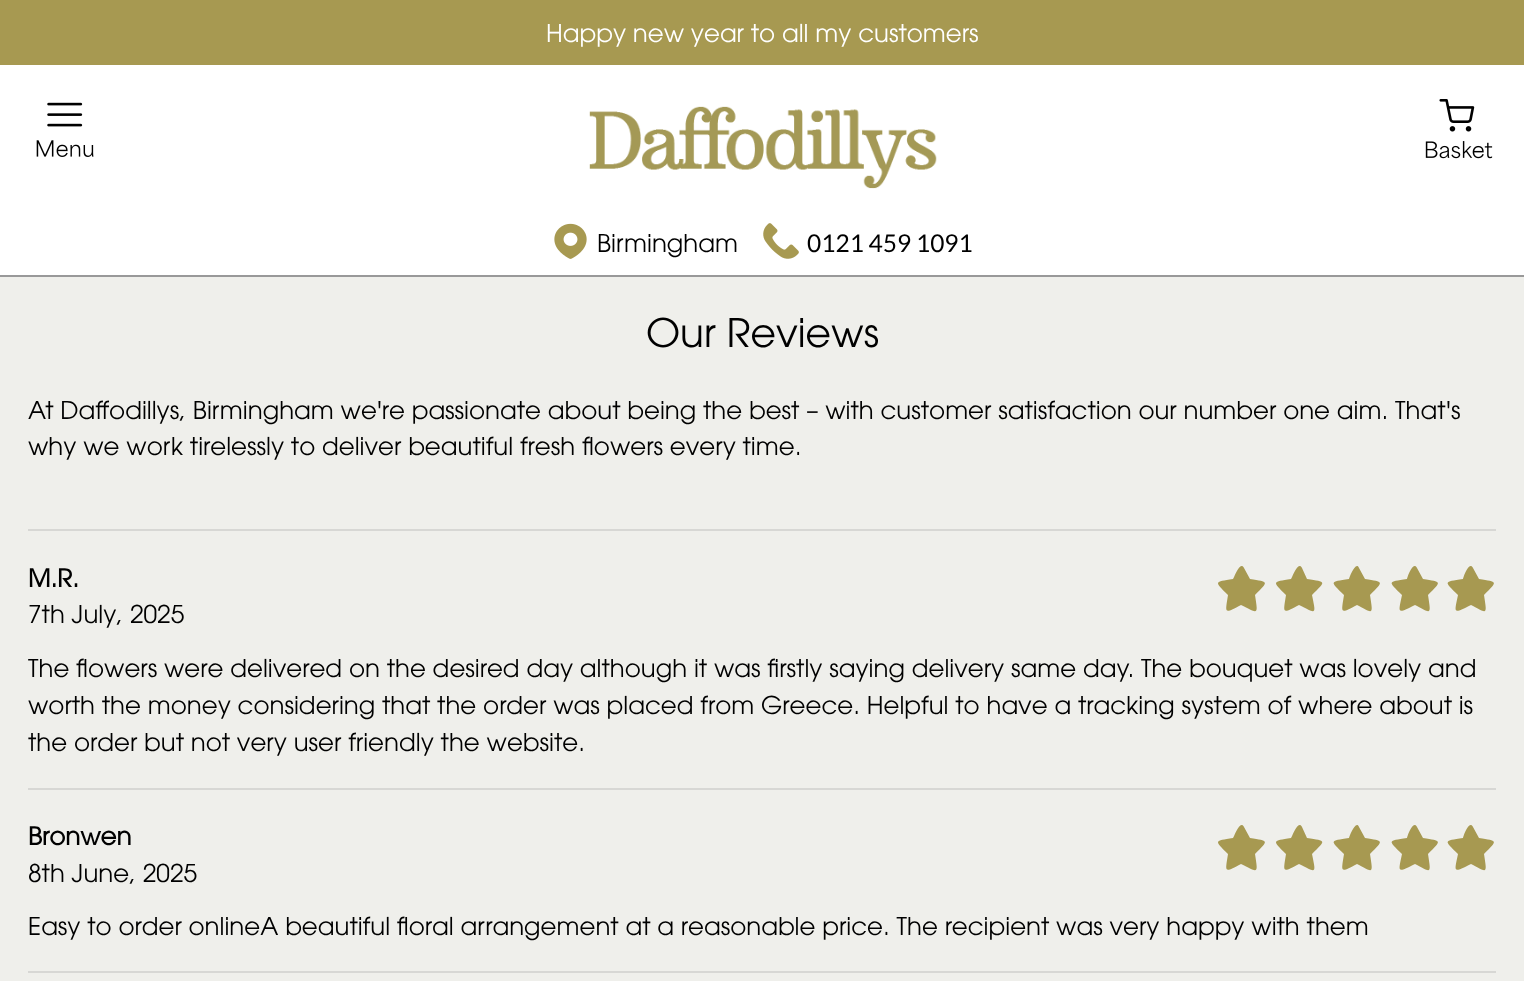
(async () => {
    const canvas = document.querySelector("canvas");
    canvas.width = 1524;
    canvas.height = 981;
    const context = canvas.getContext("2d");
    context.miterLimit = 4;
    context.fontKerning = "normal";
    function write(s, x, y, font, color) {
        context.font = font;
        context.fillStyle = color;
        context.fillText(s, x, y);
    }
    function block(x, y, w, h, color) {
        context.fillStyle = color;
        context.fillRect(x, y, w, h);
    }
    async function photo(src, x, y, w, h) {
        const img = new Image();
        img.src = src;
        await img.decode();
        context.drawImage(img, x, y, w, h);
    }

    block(0, 0, 1524, 981, "rgb(239, 239, 235)");
    block(0, 65, 1524, 210, "rgb(255, 255, 255)");
    block(0, 0, 1524, 65, "rgb(167, 153, 81)");
    write("Happy new year to all my customers", 546, 42, "300 24.5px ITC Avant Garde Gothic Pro", "rgb(255, 255, 255)");
    await photo("media/1.png", 36, 102, 58, 55);
    await photo("media/2.png", 589, 106, 348, 83);
    await photo("media/3.png", 1425, 99, 68, 60);
    block(0, 275, 1524, 2, "rgb(153, 153, 153)");
    await photo("media/4.png", 554, 223, 33, 36);
    write("Birmingham", 597, 252, "300 24.5px ITC Avant Garde Gothic Pro", "rgb(0, 0, 0)");
    await photo("media/5.png", 763, 223, 36, 36);
    write("0121 459 1091", 807, 252, "24.5px Lato", "rgb(0, 0, 0)");
    write("Our Reviews", 646, 347, "300 39.25px ITC Avant Garde Gothic Pro", "rgb(0, 0, 0)");
    write("At Daffodillys, Birmingham we're passionate about being the best – with customer satisfaction our number one aim. That's", 28, 419, "300 24.5px ITC Avant Garde Gothic Pro", "rgb(0, 0, 0)");
    write("why we work tirelessly to deliver beautiful fresh flowers every time.", 28, 455, "300 24.5px ITC Avant Garde Gothic Pro", "rgb(0, 0, 0)");
    block(28, 529, 1468, 2, "rgb(215, 215, 212)");
    write("M.R.", 28, 587, "bold 24.5px ITC Avant Garde Gothic Pro", "rgb(0, 0, 0)");
    write("7th July, 2025", 28, 623, "300 24.5px ITC Avant Garde Gothic Pro", "rgb(0, 0, 0)");
    context.fillStyle = "rgb(167, 153, 81)";
    context.beginPath();
    context.moveTo(1244, 568);
    context.bezierCurveTo(1240, 560, 1234, 578, 1233, 579);
    context.bezierCurveTo(1214, 582, 1214, 581, 1228, 595);
    context.bezierCurveTo(1225, 614, 1224, 614, 1241, 605);
    context.bezierCurveTo(1259, 614, 1258, 615, 1255, 595);
    context.bezierCurveTo(1269, 581, 1269, 582, 1250, 579);
    context.closePath();
    context.fill();
    context.beginPath();
    context.moveTo(1302, 568);
    context.bezierCurveTo(1298, 560, 1292, 578, 1291, 579);
    context.bezierCurveTo(1272, 582, 1272, 581, 1286, 595);
    context.bezierCurveTo(1283, 614, 1282, 614, 1299, 605);
    context.bezierCurveTo(1317, 614, 1316, 615, 1312, 595);
    context.bezierCurveTo(1326, 581, 1327, 582, 1307, 579);
    context.closePath();
    context.fill();
    context.beginPath();
    context.moveTo(1359, 568);
    context.bezierCurveTo(1356, 560, 1349, 578, 1349, 579);
    context.bezierCurveTo(1329, 582, 1330, 581, 1344, 595);
    context.bezierCurveTo(1341, 614, 1340, 614, 1357, 605);
    context.bezierCurveTo(1374, 614, 1373, 615, 1370, 595);
    context.bezierCurveTo(1384, 581, 1384, 582, 1365, 579);
    context.closePath();
    context.fill();
    context.beginPath();
    context.moveTo(1417, 568);
    context.bezierCurveTo(1413, 560, 1407, 578, 1407, 579);
    context.bezierCurveTo(1387, 582, 1388, 581, 1402, 595);
    context.bezierCurveTo(1398, 614, 1397, 614, 1415, 605);
    context.bezierCurveTo(1432, 614, 1431, 615, 1428, 595);
    context.bezierCurveTo(1442, 581, 1442, 582, 1423, 579);
    context.closePath();
    context.fill();
    context.beginPath();
    context.moveTo(1473, 568);
    context.bezierCurveTo(1469, 560, 1463, 578, 1463, 579);
    context.bezierCurveTo(1443, 582, 1444, 581, 1458, 595);
    context.bezierCurveTo(1454, 614, 1453, 614, 1471, 605);
    context.bezierCurveTo(1488, 614, 1487, 615, 1484, 595);
    context.bezierCurveTo(1498, 581, 1498, 582, 1479, 579);
    context.closePath();
    context.fill();
    write("The flowers were delivered on the desired day although it was firstly saying delivery same day. The bouquet was lovely and", 28, 677, "300 24.5px ITC Avant Garde Gothic Pro", "rgb(0, 0, 0)");
    write("worth the money considering that the order was placed from Greece. Helpful to have a tracking system of where about is", 28, 714, "300 24.5px ITC Avant Garde Gothic Pro", "rgb(0, 0, 0)");
    write("the order but not very user friendly the website.", 28, 751, "300 24.5px ITC Avant Garde Gothic Pro", "rgb(0, 0, 0)");
    block(28, 788, 1468, 2, "rgb(215, 215, 212)");
    write("Bronwen", 28, 845, "bold 24.5px ITC Avant Garde Gothic Pro", "rgb(0, 0, 0)");
    write("8th June, 2025", 28, 882, "300 24.5px ITC Avant Garde Gothic Pro", "rgb(0, 0, 0)");
    context.fillStyle = "rgb(167, 153, 81)";
    context.beginPath();
    context.moveTo(1244, 827);
    context.bezierCurveTo(1240, 819, 1234, 837, 1233, 838);
    context.bezierCurveTo(1214, 841, 1214, 840, 1228, 854);
    context.bezierCurveTo(1225, 873, 1224, 873, 1241, 864);
    context.bezierCurveTo(1259, 873, 1258, 874, 1255, 854);
    context.bezierCurveTo(1269, 840, 1269, 841, 1250, 838);
    context.closePath();
    context.fill();
    context.beginPath();
    context.moveTo(1302, 827);
    context.bezierCurveTo(1298, 819, 1292, 837, 1291, 838);
    context.bezierCurveTo(1272, 841, 1272, 840, 1286, 854);
    context.bezierCurveTo(1283, 873, 1282, 873, 1299, 864);
    context.bezierCurveTo(1317, 873, 1316, 874, 1312, 854);
    context.bezierCurveTo(1326, 840, 1327, 841, 1307, 838);
    context.closePath();
    context.fill();
    context.beginPath();
    context.moveTo(1359, 827);
    context.bezierCurveTo(1356, 819, 1349, 837, 1349, 838);
    context.bezierCurveTo(1329, 841, 1330, 840, 1344, 854);
    context.bezierCurveTo(1341, 873, 1340, 873, 1357, 864);
    context.bezierCurveTo(1374, 873, 1373, 874, 1370, 854);
    context.bezierCurveTo(1384, 840, 1384, 841, 1365, 838);
    context.closePath();
    context.fill();
    context.beginPath();
    context.moveTo(1417, 827);
    context.bezierCurveTo(1413, 819, 1407, 837, 1407, 838);
    context.bezierCurveTo(1387, 841, 1388, 840, 1402, 854);
    context.bezierCurveTo(1398, 873, 1397, 873, 1415, 864);
    context.bezierCurveTo(1432, 873, 1431, 874, 1428, 854);
    context.bezierCurveTo(1442, 840, 1442, 841, 1423, 838);
    context.closePath();
    context.fill();
    context.beginPath();
    context.moveTo(1473, 827);
    context.bezierCurveTo(1469, 819, 1463, 837, 1463, 838);
    context.bezierCurveTo(1443, 841, 1444, 840, 1458, 854);
    context.bezierCurveTo(1454, 873, 1453, 873, 1471, 864);
    context.bezierCurveTo(1488, 873, 1487, 874, 1484, 854);
    context.bezierCurveTo(1498, 840, 1498, 841, 1479, 838);
    context.closePath();
    context.fill();
    write("Easy to order onlineA beautiful floral arrangement at a reasonable price. The recipient was very happy with them", 28, 935, "300 24.5px ITC Avant Garde Gothic Pro", "rgb(0, 0, 0)");
    block(28, 971, 1468, 2, "rgb(215, 215, 212)");
})();
